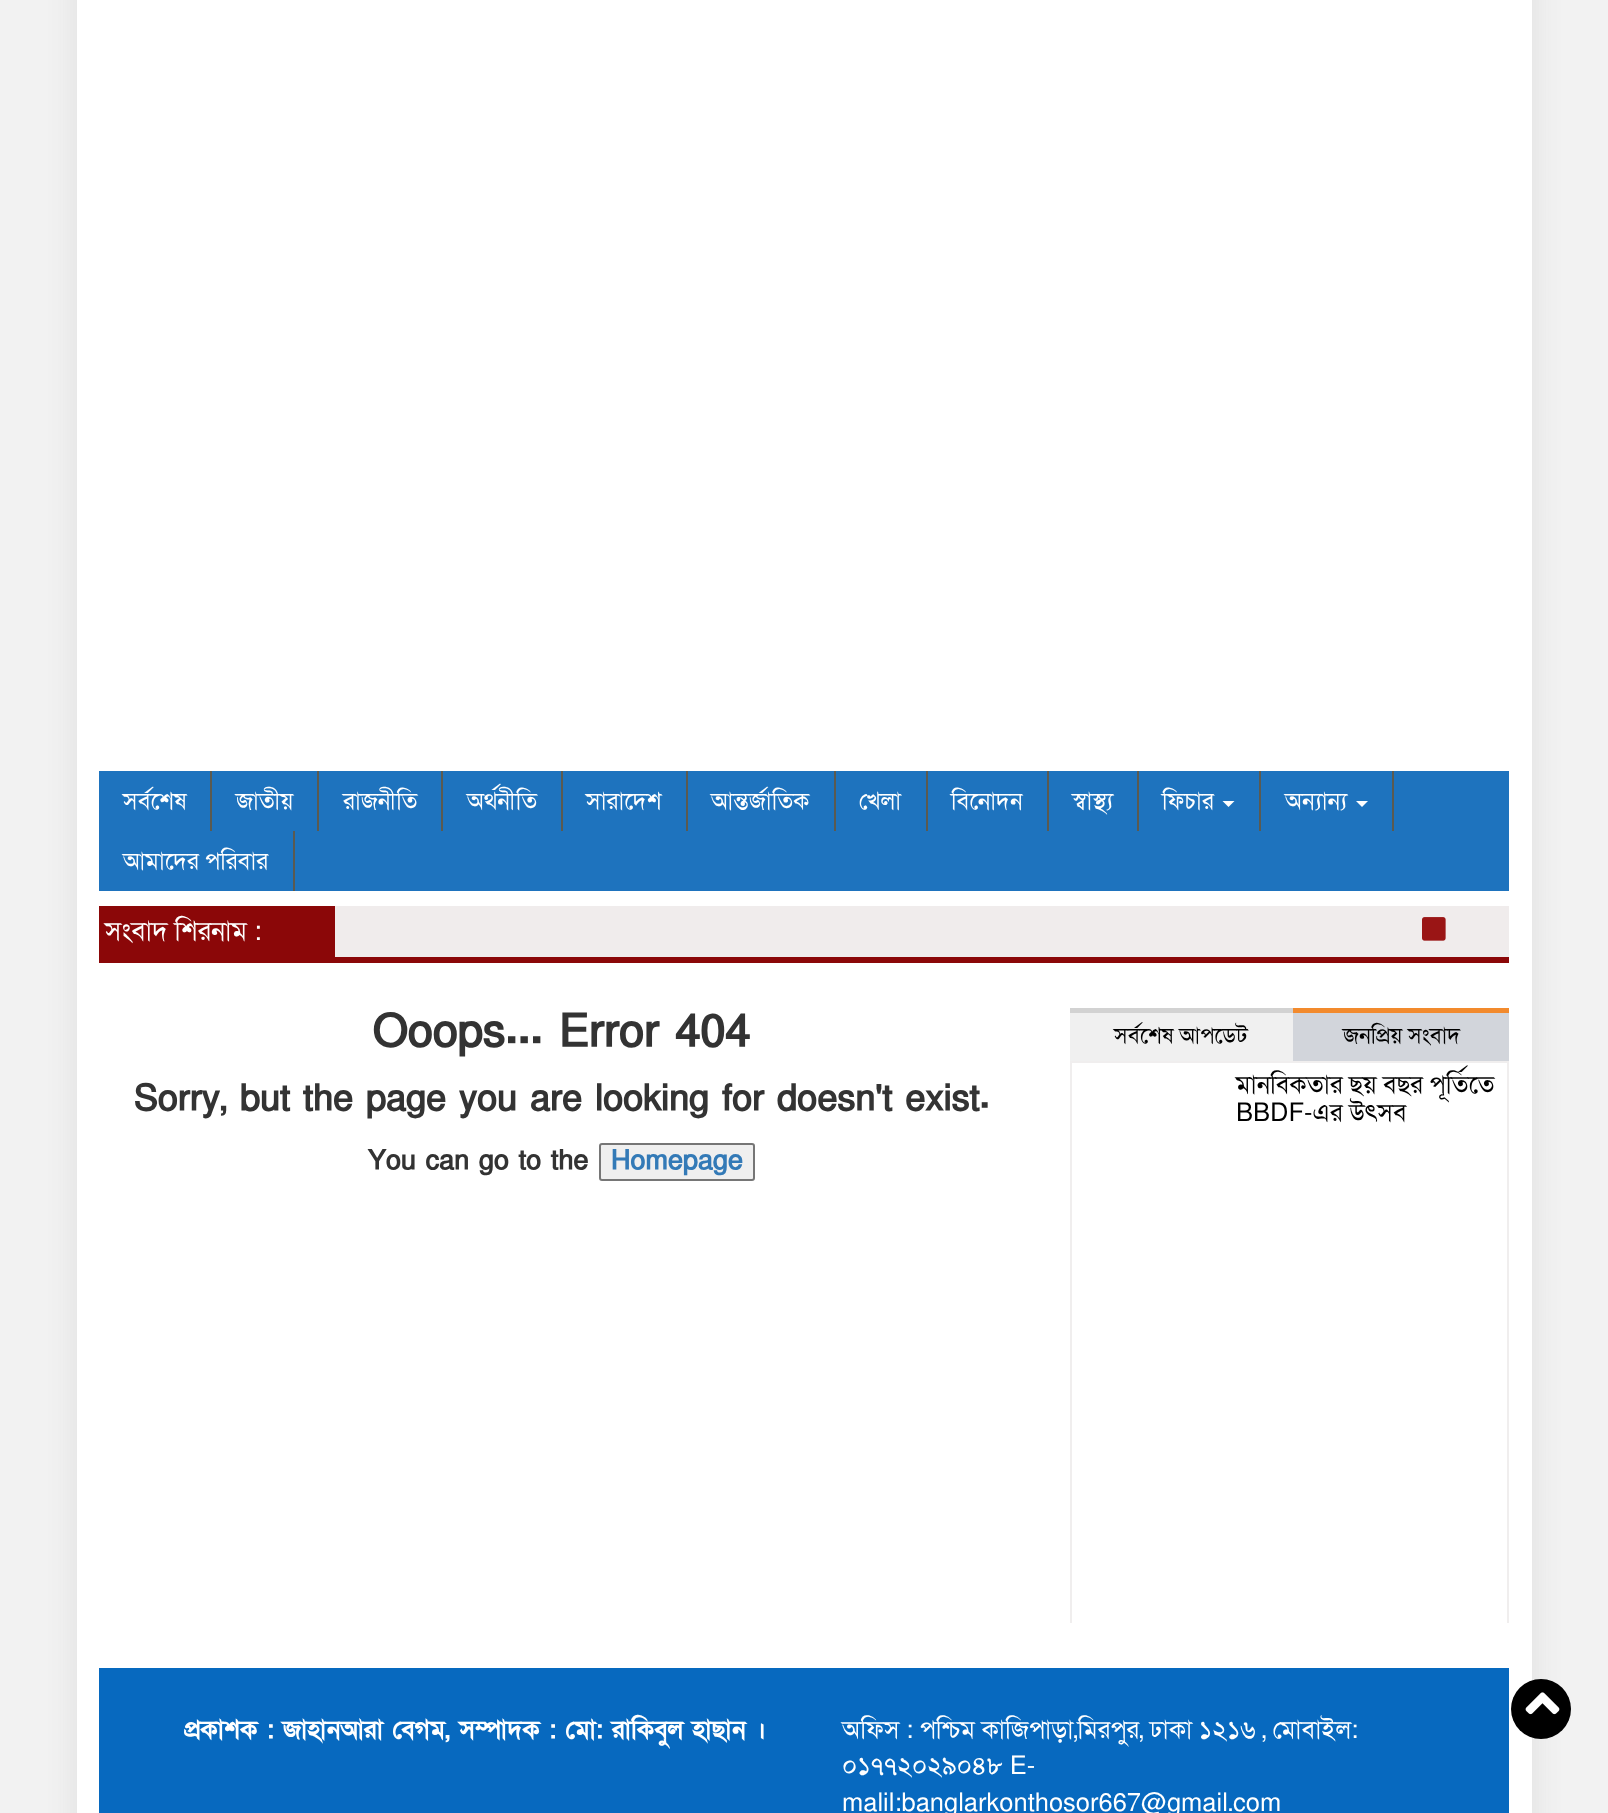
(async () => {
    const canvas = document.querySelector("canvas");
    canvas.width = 1608;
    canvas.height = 1813;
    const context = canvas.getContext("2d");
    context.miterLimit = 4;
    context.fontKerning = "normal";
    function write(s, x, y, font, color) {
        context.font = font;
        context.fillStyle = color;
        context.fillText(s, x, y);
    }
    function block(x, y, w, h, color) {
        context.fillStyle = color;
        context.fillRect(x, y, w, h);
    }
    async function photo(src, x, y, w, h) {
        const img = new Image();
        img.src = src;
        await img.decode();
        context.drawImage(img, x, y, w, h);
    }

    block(0, 0, 1608, 1813, "rgb(242, 242, 242)");
    context.fillStyle = "rgb(221, 221, 221)";
    context.filter = "blur(15px)";
    context.beginPath();
    context.rect(77, -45, 1455, 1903);
    context.fill();
    context.filter = "none";
    block(77, 0, 1455, 1813, "rgb(255, 255, 255)");
    block(99, 771, 1410, 120, "rgb(30, 115, 190)");
    block(210, 771, 2, 60, "rgb(91, 90, 80)");
    write("সর্বশেষ", 123, 809, "24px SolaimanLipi", "rgb(255, 255, 255)");
    block(317, 771, 2, 60, "rgb(91, 90, 80)");
    write("জাতীয়", 236, 809, "24px SolaimanLipi", "rgb(255, 255, 255)");
    block(441, 771, 2, 60, "rgb(91, 90, 80)");
    write("রাজনীতি", 343, 809, "24px SolaimanLipi", "rgb(255, 255, 255)");
    block(561, 771, 2, 60, "rgb(91, 90, 80)");
    write("অর্থনীতি", 467, 809, "24px SolaimanLipi", "rgb(255, 255, 255)");
    block(686, 771, 2, 60, "rgb(91, 90, 80)");
    write("সারাদেশ", 586, 809, "24px SolaimanLipi", "rgb(255, 255, 255)");
    block(834, 771, 2, 60, "rgb(91, 90, 80)");
    write("আন্তর্জাতিক", 711, 809, "24px SolaimanLipi", "rgb(255, 255, 255)");
    block(926, 771, 2, 60, "rgb(91, 90, 80)");
    write("খেলা", 859, 809, "24px SolaimanLipi", "rgb(255, 255, 255)");
    block(1047, 771, 2, 60, "rgb(91, 90, 80)");
    write("বিনোদন", 951, 809, "24px SolaimanLipi", "rgb(255, 255, 255)");
    block(1137, 771, 2, 60, "rgb(91, 90, 80)");
    write("স্বাস্থ্য", 1072, 809, "24px SolaimanLipi", "rgb(255, 255, 255)");
    block(1259, 771, 2, 60, "rgb(91, 90, 80)");
    write("ফিচার", 1162, 809, "24px SolaimanLipi", "rgb(255, 255, 255)");
    context.beginPath();
    context.moveTo(1222.5, 801);
    context.lineTo(1234.5, 801);
    context.lineTo(1228.5, 807);
    context.closePath();
    context.fill();
    block(1392, 771, 2, 60, "rgb(91, 90, 80)");
    write("অন্যান্য", 1285, 809, "24px SolaimanLipi", "rgb(255, 255, 255)");
    context.beginPath();
    context.moveTo(1356, 801);
    context.lineTo(1368, 801);
    context.lineTo(1362, 807);
    context.closePath();
    context.fill();
    block(293, 831, 2, 60, "rgb(91, 90, 80)");
    write("আমাদের পরিবার", 123, 869, "24px SolaimanLipi", "rgb(255, 255, 255)");
    block(99, 906, 236, 57, "rgb(139, 7, 8)");
    write("সংবাদ শিরনাম :", 105, 940, "27px SolaimanLipi", "rgb(255, 255, 255)");
    block(335, 906, 1174, 51, "rgb(240, 236, 236)");
    block(335, 957, 1174, 6, "rgb(139, 7, 8)");
    await photo("media/1.png", 1422, 917, 24, 24);
    write("Ooops... Error 404", 373, 1046, "bold 45px SolaimanLipi", "rgb(51, 51, 51)");
    write("Sorry, but the page you are looking for doesn't exist.", 134, 1110, "bold 36px SolaimanLipi", "rgb(51, 51, 51)");
    write("You can go to the", 368, 1169, "bold 27px SolaimanLipi", "rgb(51, 51, 51)");
    context.fillStyle = "rgb(239, 239, 239)";
    context.beginPath();
    context.roundRect(600, 1144, 154, 36, 2);
    context.fill();
    context.strokeStyle = "rgb(118, 118, 118)";
    context.lineWidth = 2;
    context.stroke();
    write("Homepage", 611, 1169, "bold 27px SolaimanLipi", "rgb(51, 122, 183)");
    block(1293, 1013, 216, 48, "rgb(210, 213, 219)");
    block(1070, 1013, 223, 48, "rgb(240, 240, 240)");
    block(1070, 1008, 223, 5, "rgb(210, 210, 210)");
    write("সর্বশেষ আপডেট", 1114, 1043, "22.5px SolaimanLipi", "rgb(0, 0, 0)");
    block(1293, 1008, 216, 5, "rgb(242, 138, 45)");
    write("জনপ্রিয় সংবাদ", 1343, 1043, "22.5px SolaimanLipi", "rgb(0, 0, 0)");
    block(99, 1668, 1410, 145, "rgb(7, 105, 191)");
    context.save();
    context.beginPath();
    context.rect(1070, 1061, 439, 562);
    context.clip();
    context.strokeStyle = "rgb(240, 238, 238)";
    context.strokeRect(1071, 1062, 437, 646);
    context.restore();
    write("মানবিকতার ছয় বছর পূর্তিতে", 1236, 1093, "25.5px SolaimanLipi", "rgb(0, 0, 0)");
    write("BBDF-এর উৎসব", 1236, 1121, "25.5px SolaimanLipi", "rgb(0, 0, 0)");
    write("প্রকাশক : জাহানআরা বেগম, সম্পাদক : মো: রাকিবুল হাছান ।", 184, 1738, "bold 25.5px SolaimanLipi", "rgb(255, 255, 255)");
    write("অফিস : পশ্চিম কাজিপাড়া,মিরপুর, ঢাকা ১২১৬ , মোবাইল:", 842, 1738, "25.5px SolaimanLipi", "rgb(255, 255, 255)");
    write("০১৭৭২০২৯০৪৮ E-", 842, 1774, "25.5px SolaimanLipi", "rgb(255, 255, 255)");
    write("malil:banglarkonthosor667@gmail.com", 842, 1811, "25.5px SolaimanLipi", "rgb(255, 255, 255)");
    context.fillStyle = "rgb(0, 0, 0)";
    context.beginPath();
    context.arc(1541, 1709, 30, 0, Math.PI * 2);
    context.fill();
    await photo("media/2.png", 1525, 1692, 35, 23);
})();
